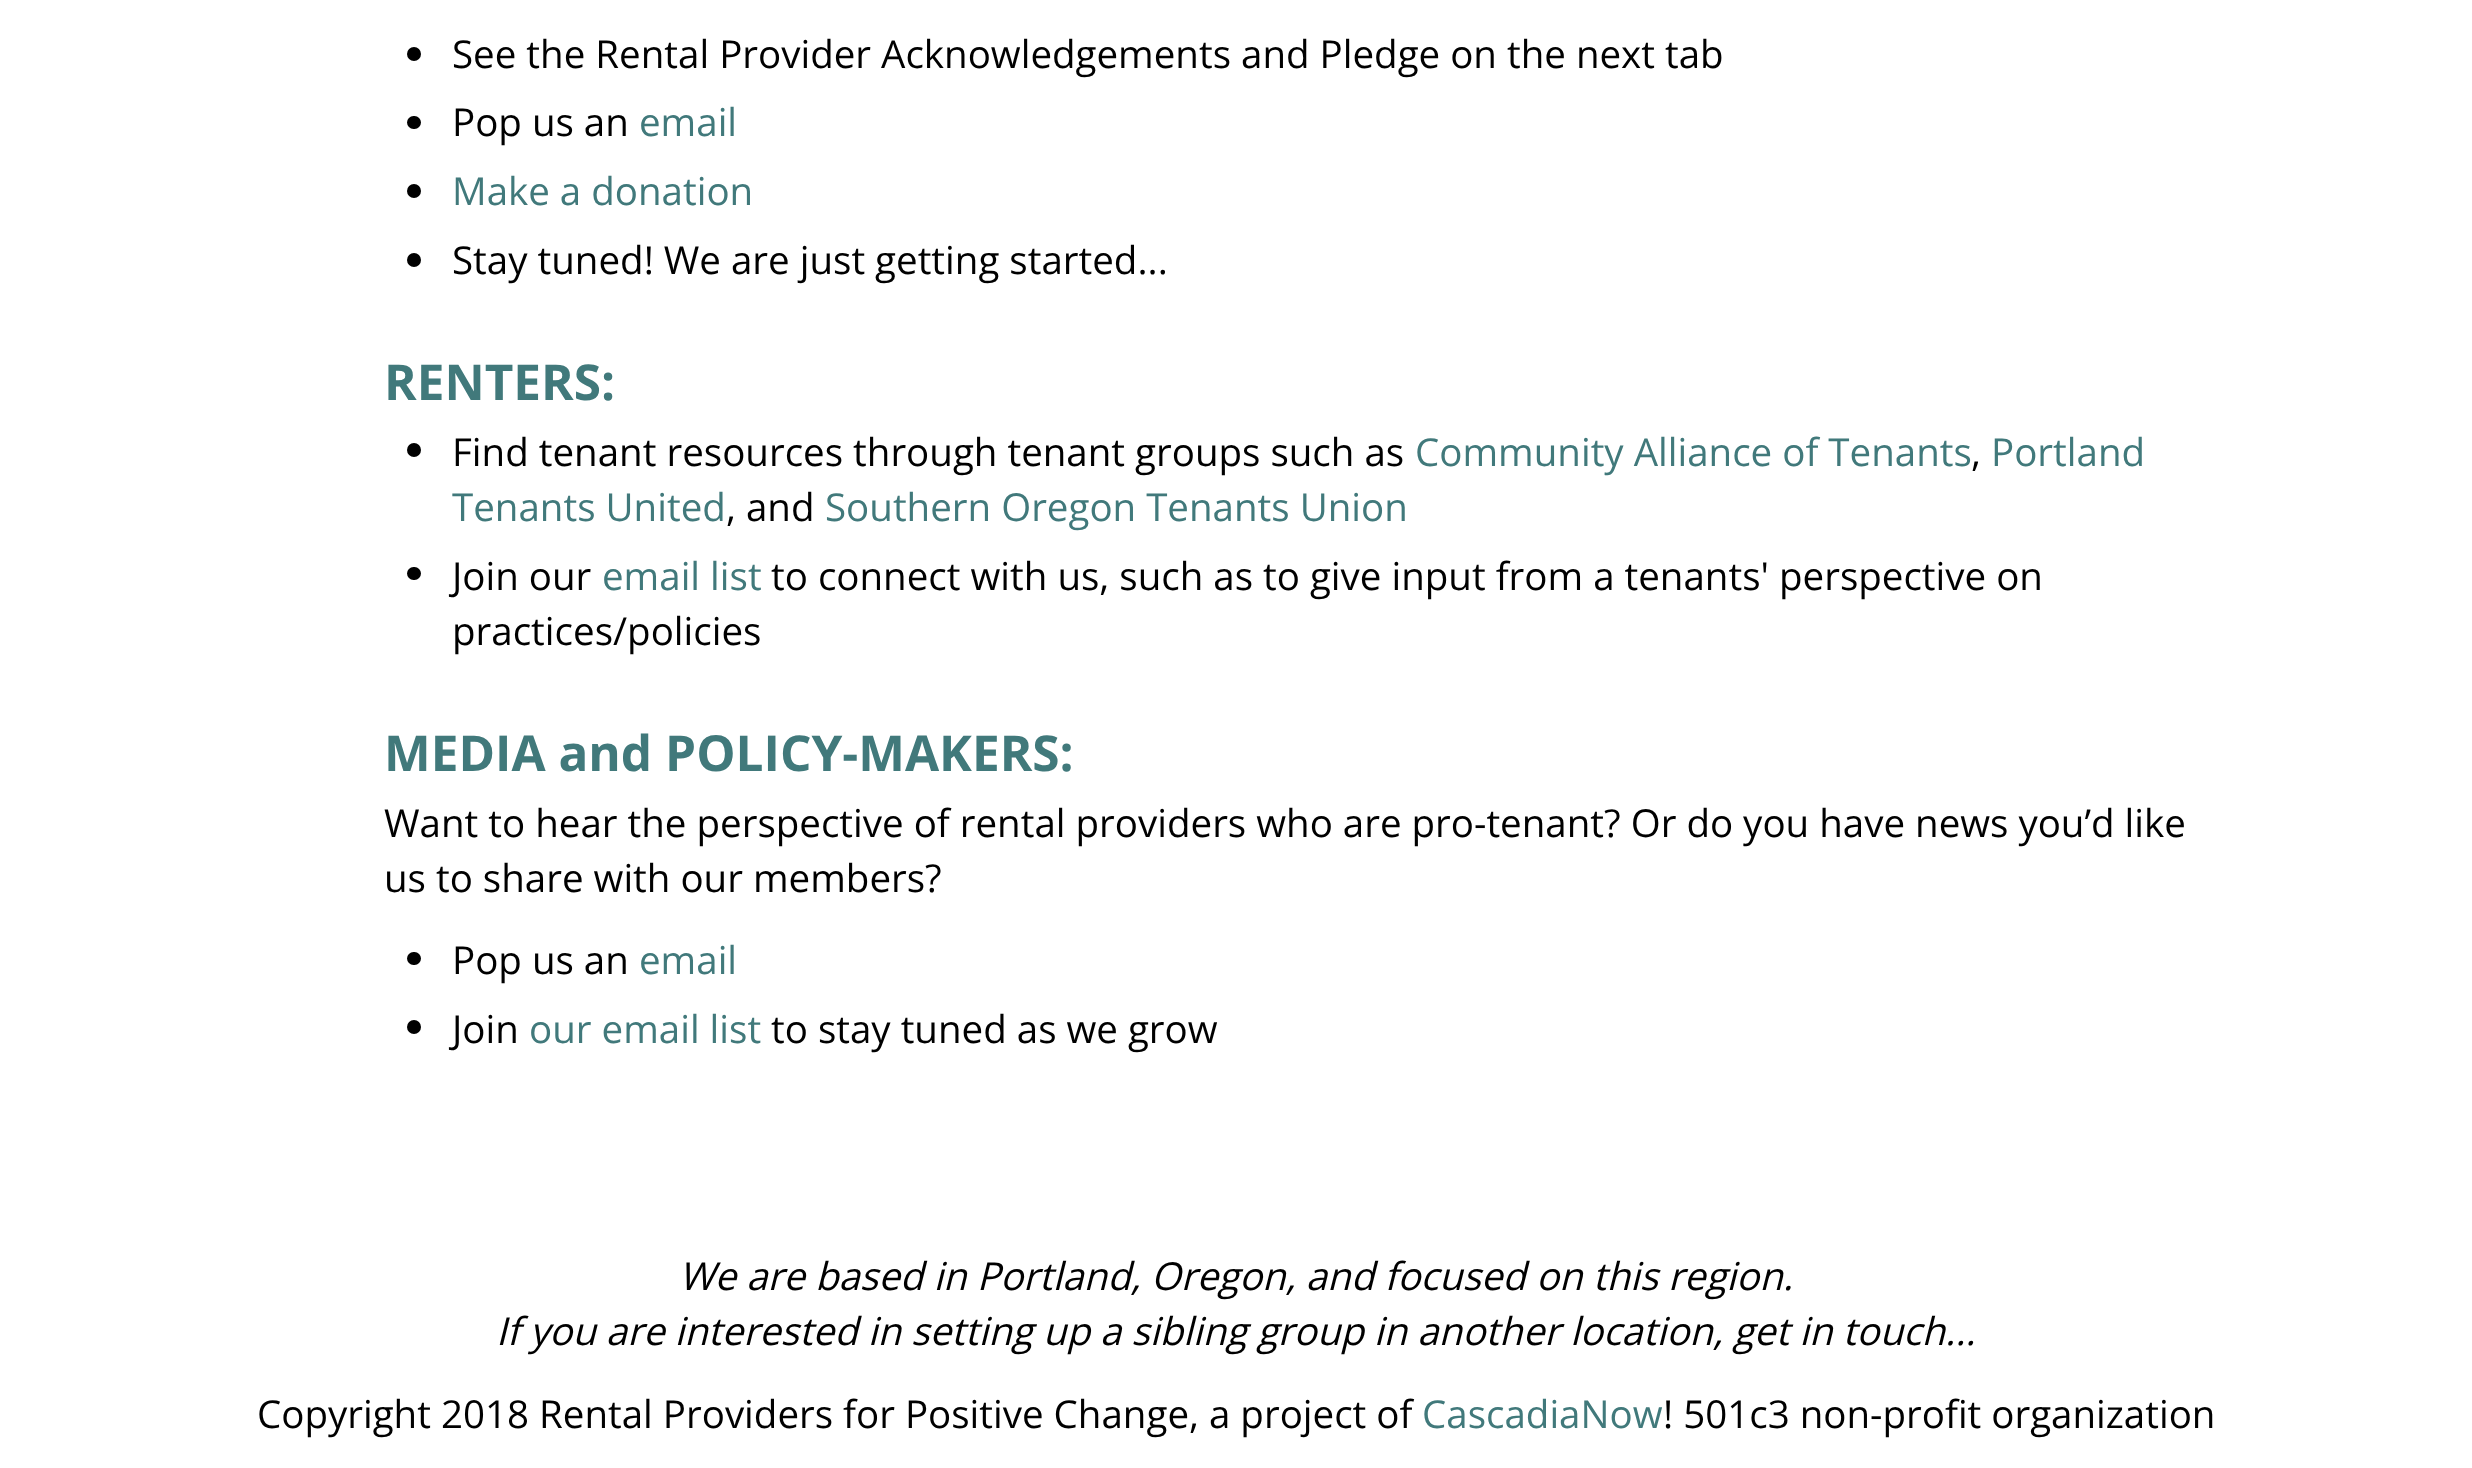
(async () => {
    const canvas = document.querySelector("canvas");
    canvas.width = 2472;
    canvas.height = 1468;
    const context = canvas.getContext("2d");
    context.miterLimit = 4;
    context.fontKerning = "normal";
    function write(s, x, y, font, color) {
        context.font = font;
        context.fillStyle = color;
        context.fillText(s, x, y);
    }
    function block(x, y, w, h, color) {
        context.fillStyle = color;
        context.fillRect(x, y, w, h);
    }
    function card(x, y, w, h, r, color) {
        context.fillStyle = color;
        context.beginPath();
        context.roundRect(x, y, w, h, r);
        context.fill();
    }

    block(0, 0, 2472, 1468, "rgb(255, 255, 255)");
    context.fillStyle = "rgb(0, 0, 0)";
    context.beginPath();
    context.arc(414, 54, 7, 0, Math.PI * 2);
    context.fill();
    write("See the Rental Provider Acknowledgements and Pledge on the next tab", 452, 68, "38.5px Open Sans", "rgb(0, 0, 0)");
    card(407, 116, 14, 13, 6.5, "rgb(0, 0, 0)");
    write("Pop us an", 452, 136, "38.5px Open Sans", "rgb(0, 0, 0)");
    write("email", 639, 136, "38.5px Open Sans", "rgb(65, 121, 123)");
    context.fillStyle = "rgb(0, 0, 0)";
    context.beginPath();
    context.arc(414, 191, 7, 0, Math.PI * 2);
    context.fill();
    write("Make a donation", 452, 205, "38.5px Open Sans", "rgb(65, 121, 123)");
    context.fillStyle = "rgb(0, 0, 0)";
    context.beginPath();
    context.arc(414, 260, 7, 0, Math.PI * 2);
    context.fill();
    write("Stay tuned! We are just getting started...", 452, 274, "38.5px Open Sans", "rgb(0, 0, 0)");
    write("RENTERS:", 384, 400, "bold 49.5px Open Sans", "rgb(65, 121, 123)");
    context.fillStyle = "rgb(0, 0, 0)";
    context.beginPath();
    context.arc(414, 450, 7, 0, Math.PI * 2);
    context.fill();
    write("Find tenant resources through tenant groups such as", 452, 466, "38.5px Open Sans", "rgb(0, 0, 0)");
    write("Community Alliance of Tenants", 1415, 466, "38.5px Open Sans", "rgb(65, 121, 123)");
    write("Portland", 1991, 466, "38.5px Open Sans", "rgb(65, 121, 123)");
    write(",", 1971, 466, "38.5px Open Sans", "rgb(0, 0, 0)");
    write("Tenants United", 452, 521, "38.5px Open Sans", "rgb(65, 121, 123)");
    write(", and", 726, 521, "38.5px Open Sans", "rgb(0, 0, 0)");
    write("Southern Oregon Tenants Union", 825, 521, "38.5px Open Sans", "rgb(65, 121, 123)");
    card(407, 567, 14, 13, 6.5, "rgb(0, 0, 0)");
    write("Join our", 452, 590, "38.5px Open Sans", "rgb(0, 0, 0)");
    write("email list", 602, 590, "38.5px Open Sans", "rgb(65, 121, 123)");
    write("to connect with us, such as to give input from a tenants' perspective on", 771, 590, "38.5px Open Sans", "rgb(0, 0, 0)");
    write("practices/policies", 452, 645, "38.5px Open Sans", "rgb(0, 0, 0)");
    write("MEDIA and POLICY-MAKERS:", 384, 771, "bold 49.5px Open Sans", "rgb(65, 121, 123)");
    write("Want to hear the perspective of rental providers who are pro-tenant? Or do you have news you’d like", 384, 837, "38.5px Open Sans", "rgb(0, 0, 0)");
    write("us to share with our members?", 384, 892, "38.5px Open Sans", "rgb(0, 0, 0)");
    card(407, 952, 14, 13, 6.5, "rgb(0, 0, 0)");
    write("Pop us an", 452, 974, "38.5px Open Sans", "rgb(0, 0, 0)");
    write("email", 639, 974, "38.5px Open Sans", "rgb(65, 121, 123)");
    context.fillStyle = "rgb(0, 0, 0)";
    context.beginPath();
    context.arc(414, 1027, 7, 0, Math.PI * 2);
    context.fill();
    write("Join", 452, 1043, "38.5px Open Sans", "rgb(0, 0, 0)");
    write("our email list", 529, 1043, "38.5px Open Sans", "rgb(65, 121, 123)");
    write("to stay tuned as we grow", 771, 1043, "38.5px Open Sans", "rgb(0, 0, 0)");
    write("We are based in Portland, Oregon, and focused on this region.", 679, 1290, "italic 38.5px Open Sans", "rgb(0, 0, 0)");
    write("If you are interested in setting up a sibling group in another location, get in touch...", 496, 1345, "italic 38.5px Open Sans", "rgb(0, 0, 0)");
    write("Copyright 2018 Rental Providers for Positive Change, a project of", 257, 1428, "38.5px Open Sans", "rgb(0, 0, 0)");
    write("CascadiaNow", 1422, 1428, "38.5px Open Sans", "rgb(65, 121, 123)");
    write("! 501c3 non-profit organization", 1663, 1428, "38.5px Open Sans", "rgb(0, 0, 0)");
})();
